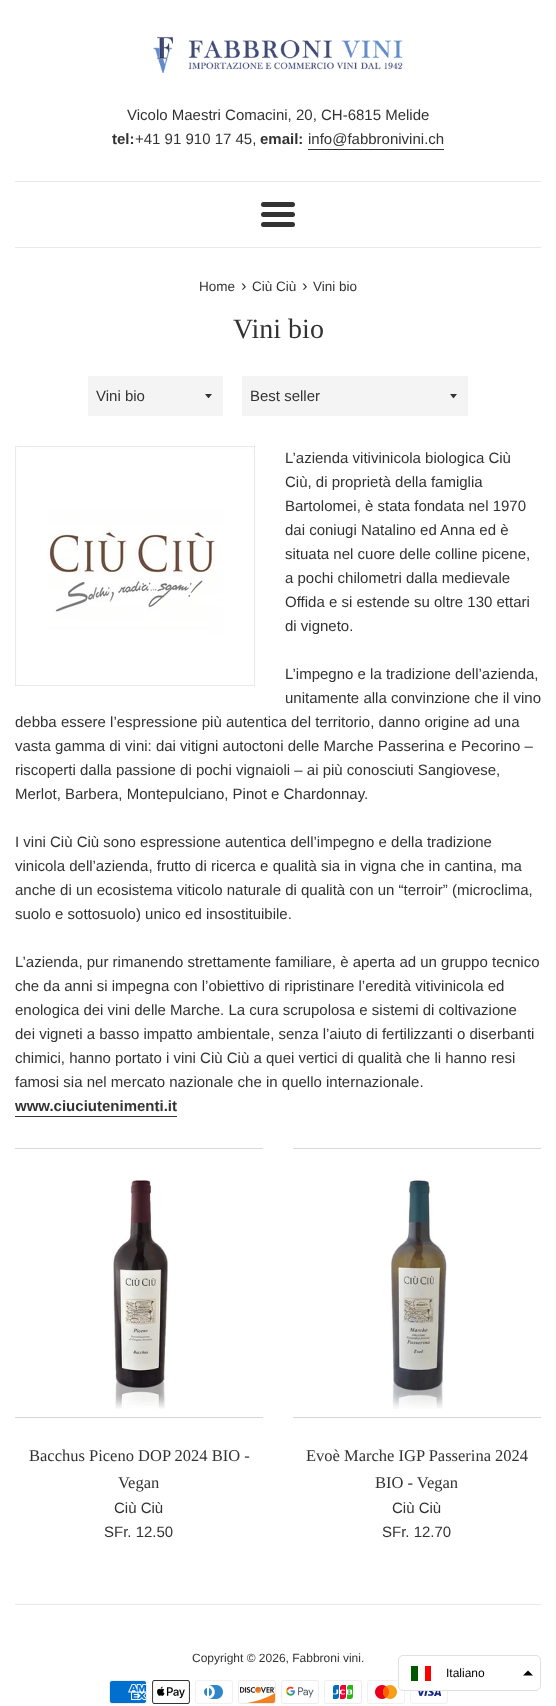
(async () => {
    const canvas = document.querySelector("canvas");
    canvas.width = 556;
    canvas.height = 1706;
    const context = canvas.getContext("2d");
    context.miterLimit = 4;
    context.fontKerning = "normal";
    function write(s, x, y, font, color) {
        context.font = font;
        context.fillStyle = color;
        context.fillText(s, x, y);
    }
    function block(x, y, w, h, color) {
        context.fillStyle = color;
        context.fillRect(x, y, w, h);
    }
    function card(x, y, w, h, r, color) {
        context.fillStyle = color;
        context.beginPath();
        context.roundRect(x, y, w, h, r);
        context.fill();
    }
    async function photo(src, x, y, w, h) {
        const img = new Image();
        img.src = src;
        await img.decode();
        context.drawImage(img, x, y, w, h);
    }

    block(0, 0, 556, 1706, "rgb(255, 255, 255)");
    await photo("media/1.png", 153, 36, 250, 37);
    write("Vicolo Maestri Comacini, 20, CH-6815 Melide", 127, 120, "15px Liberation Sans", "rgb(51, 51, 51)");
    write("tel:", 112, 144, "bold 15px Liberation Sans", "rgb(51, 51, 51)");
    write("+41 91 910 17 45,", 135, 144, "15px Liberation Sans", "rgb(51, 51, 51)");
    write("email:", 260, 144, "bold 15px Liberation Sans", "rgb(51, 51, 51)");
    write("info@fabbronivini.ch", 308, 144, "15px Liberation Sans", "rgb(51, 51, 51)");
    block(308, 149, 136, 1, "rgb(51, 51, 51)");
    block(15, 181, 526, 1, "rgb(232, 232, 232)");
    card(261, 202, 34, 5, 2.5, "rgb(51, 51, 51)");
    card(261, 212, 34, 5, 2.5, "rgb(51, 51, 51)");
    card(261, 222, 34, 5, 2.5, "rgb(51, 51, 51)");
    block(15, 247, 526, 1, "rgb(232, 232, 232)");
    write("Home", 199, 291, "13.5px Liberation Sans", "rgb(51, 51, 51)");
    write("›", 241, 291, "16.5px Liberation Sans", "rgb(51, 51, 51)");
    write("Ciù Ciù", 252, 291, "13.5px Liberation Sans", "rgb(51, 51, 51)");
    write("›", 302, 291, "16.5px Liberation Sans", "rgb(51, 51, 51)");
    write("Vini bio", 313, 291, "13.5px Liberation Sans", "rgb(51, 51, 51)");
    write("Vini bio", 233, 338, "28px Liberation Serif", "rgb(51, 51, 51)");
    block(88, 376, 135, 40, "rgb(244, 244, 244)");
    context.fillStyle = "rgb(51, 51, 51)";
    context.beginPath();
    context.moveTo(205, 394);
    context.bezierCurveTo(209.5, 399.5, 207.5, 399.5, 212, 394);
    context.closePath();
    context.fill();
    write("Vini bio", 96, 401, "15px Liberation Sans", "rgb(51, 51, 51)");
    block(242, 376, 226, 40, "rgb(244, 244, 244)");
    context.fillStyle = "rgb(51, 51, 51)";
    context.beginPath();
    context.moveTo(450, 394);
    context.bezierCurveTo(454.5, 399.5, 452.5, 399.5, 457, 394);
    context.closePath();
    context.fill();
    write("Best seller", 250, 401, "15px Liberation Sans", "rgb(51, 51, 51)");
    await photo("media/2.png", 15, 446, 240, 240);
    write("L’azienda vitivinicola biologica Ciù", 285, 463, "15px Liberation Sans", "rgb(51, 51, 51)");
    write("Ciù, di proprietà della famiglia", 285, 487, "15px Liberation Sans", "rgb(51, 51, 51)");
    write("Bartolomei, è stata fondata nel 1970", 285, 511, "15px Liberation Sans", "rgb(51, 51, 51)");
    write("dai coniugi Natalino ed Anna ed è", 285, 535, "15px Liberation Sans", "rgb(51, 51, 51)");
    write("situata nel cuore delle colline picene,", 285, 559, "15px Liberation Sans", "rgb(51, 51, 51)");
    write("a pochi chilometri dalla medievale", 285, 583, "15px Liberation Sans", "rgb(51, 51, 51)");
    write("Offida e si estende su oltre 130 ettari", 285, 607, "15px Liberation Sans", "rgb(51, 51, 51)");
    write("di vigneto.", 285, 631, "15px Liberation Sans", "rgb(51, 51, 51)");
    write("L’impegno e la tradizione dell’azienda,", 285, 679, "15px Liberation Sans", "rgb(51, 51, 51)");
    write("unitamente alla convinzione che il vino", 285, 703, "15px Liberation Sans", "rgb(51, 51, 51)");
    write("debba essere l’espressione più autentica del territorio, danno origine ad una", 15, 727, "15px Liberation Sans", "rgb(51, 51, 51)");
    write("vasta gamma di vini: dai vitigni autoctoni delle Marche Passerina e Pecorino –", 15, 751, "15px Liberation Sans", "rgb(51, 51, 51)");
    write("riscoperti dalla passione di pochi vignaioli – ai più conosciuti Sangiovese,", 15, 775, "15px Liberation Sans", "rgb(51, 51, 51)");
    write("Merlot, Barbera, Montepulciano, Pinot e Chardonnay.", 15, 799, "15px Liberation Sans", "rgb(51, 51, 51)");
    write("I vini Ciù Ciù sono espressione autentica dell’impegno e della tradizione", 15, 847, "15px Liberation Sans", "rgb(51, 51, 51)");
    write("vinicola dell’azienda, frutto di ricerca e qualità sia in vigna che in cantina, ma", 15, 871, "15px Liberation Sans", "rgb(51, 51, 51)");
    write("anche di un ecosistema viticolo naturale di qualità con un “terroir” (microclima,", 15, 895, "15px Liberation Sans", "rgb(51, 51, 51)");
    write("suolo e sottosuolo) unico ed insostituibile.", 15, 919, "15px Liberation Sans", "rgb(51, 51, 51)");
    write("L’azienda, pur rimanendo strettamente familiare, è aperta ad un gruppo tecnico", 15, 967, "15px Liberation Sans", "rgb(51, 51, 51)");
    write("che da anni si impegna con l’obiettivo di ripristinare l’eredità vitivinicola ed", 15, 991, "15px Liberation Sans", "rgb(51, 51, 51)");
    write("enologica dei vini delle Marche. La cura scrupolosa e sistemi di coltivazione", 15, 1015, "15px Liberation Sans", "rgb(51, 51, 51)");
    write("dei vigneti a basso impatto ambientale, senza l’aiuto di fertilizzanti o diserbanti", 15, 1039, "15px Liberation Sans", "rgb(51, 51, 51)");
    write("chimici, hanno portato i vini Ciù Ciù a quei vertici di qualità che li hanno resi", 15, 1063, "15px Liberation Sans", "rgb(51, 51, 51)");
    write("famosi sia nel mercato nazionale che in quello internazionale.", 15, 1087, "15px Liberation Sans", "rgb(51, 51, 51)");
    write("www.ciuciutenimenti.it", 15, 1111, "bold 15px Liberation Sans", "rgb(51, 51, 51)");
    block(15, 1116, 162, 1, "rgb(51, 51, 51)");
    context.save();
    context.beginPath();
    context.rect(15, 1133, 248, 300);
    context.clip();
    context.strokeStyle = "rgb(215, 215, 215)";
    context.strokeRect(4.5, 1148.5, 269, 269);
    context.restore();
    await photo("media/3.png", 112, 1179, 57, 230);
    write("Bacchus Piceno DOP 2024 BIO -", 29, 1461, "16.5px Liberation Serif", "rgb(51, 51, 51)");
    write("Vegan", 118, 1488, "16.5px Liberation Serif", "rgb(51, 51, 51)");
    write("Ciù Ciù", 114, 1513, "15px Liberation Sans", "rgb(51, 51, 51)");
    write("SFr. 12.50", 104, 1537, "15px Liberation Sans", "rgb(51, 51, 51)");
    context.save();
    context.beginPath();
    context.rect(293, 1133, 248, 300);
    context.clip();
    context.strokeStyle = "rgb(215, 215, 215)";
    context.strokeRect(282.5, 1148.5, 269, 269);
    context.restore();
    await photo("media/4.png", 390, 1179, 58, 230);
    write("Evoè Marche IGP Passerina 2024", 306, 1461, "16.5px Liberation Serif", "rgb(51, 51, 51)");
    write("BIO - Vegan", 375, 1488, "16.5px Liberation Serif", "rgb(51, 51, 51)");
    write("Ciù Ciù", 392, 1513, "15px Liberation Sans", "rgb(51, 51, 51)");
    write("SFr. 12.70", 382, 1537, "15px Liberation Sans", "rgb(51, 51, 51)");
    block(15, 1604, 526, 1, "rgb(232, 232, 232)");
    write("Copyright © 2026, Fabbroni vini.", 192, 1662, "12px Liberation Sans", "rgb(51, 51, 51)");
    await photo("media/5.png", 109, 1680, 38, 24);
    await photo("media/6.png", 152, 1680, 38, 24);
    await photo("media/7.png", 195, 1680, 38, 24);
    await photo("media/8.png", 238, 1680, 38, 24);
    await photo("media/9.png", 281, 1680, 38, 24);
    await photo("media/10.png", 324, 1680, 38, 24);
    await photo("media/11.png", 367, 1680, 38, 24);
    await photo("media/12.png", 410, 1691, 38, 13);
    context.fillStyle = "rgb(255, 255, 255)";
    context.beginPath();
    context.roundRect(398.5, 1655.5, 142, 35, 4.5);
    context.fill();
    context.strokeStyle = "rgb(224, 224, 224)";
    context.stroke();
    block(411, 1666, 7, 15, "rgb(0, 87, 0)");
    block(425, 1666, 6, 15, "rgb(252, 0, 0)");
    write("Italiano", 446, 1677, "12px Liberation Sans", "rgb(0, 0, 0)");
    context.beginPath();
    context.moveTo(523, 1675.5);
    context.lineTo(528, 1670.5);
    context.lineTo(533, 1675.5);
    context.closePath();
    context.fill("evenodd");
})();
